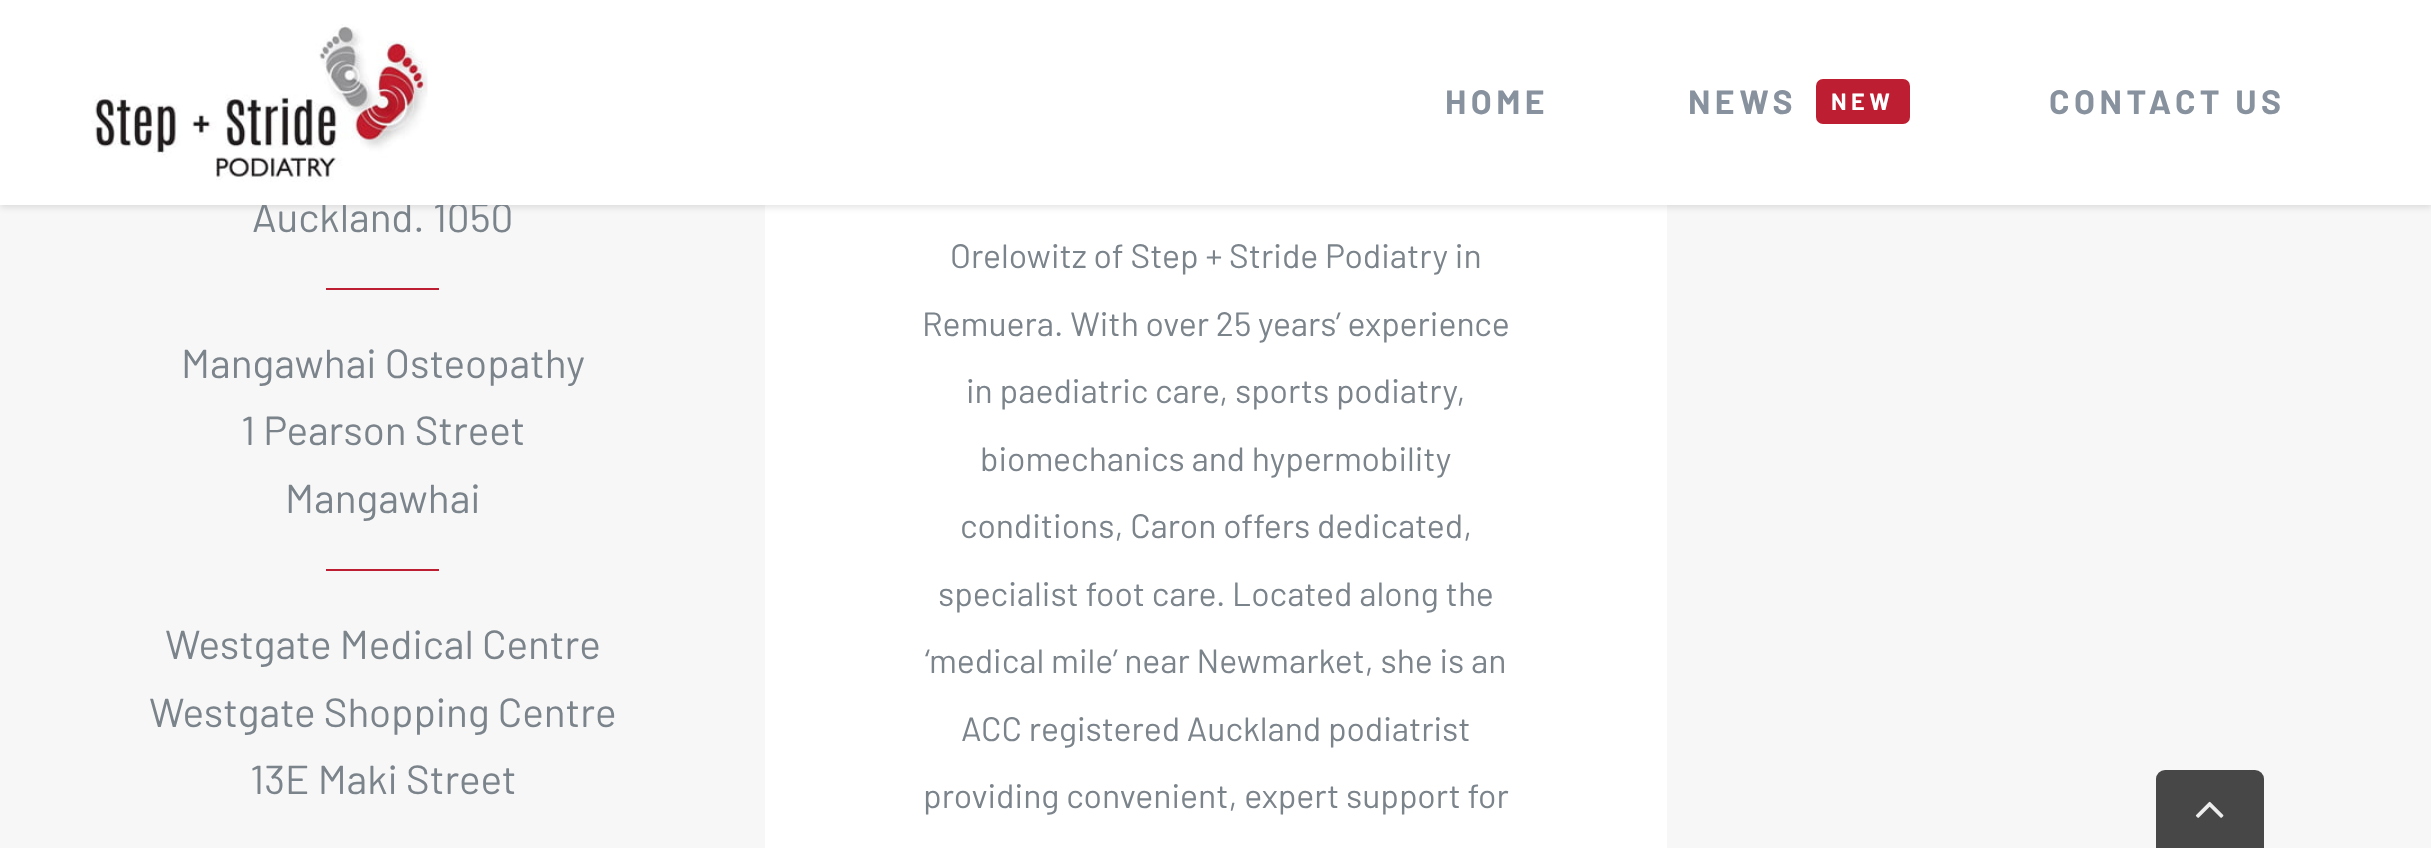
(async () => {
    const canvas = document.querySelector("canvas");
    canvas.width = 2431;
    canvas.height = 848;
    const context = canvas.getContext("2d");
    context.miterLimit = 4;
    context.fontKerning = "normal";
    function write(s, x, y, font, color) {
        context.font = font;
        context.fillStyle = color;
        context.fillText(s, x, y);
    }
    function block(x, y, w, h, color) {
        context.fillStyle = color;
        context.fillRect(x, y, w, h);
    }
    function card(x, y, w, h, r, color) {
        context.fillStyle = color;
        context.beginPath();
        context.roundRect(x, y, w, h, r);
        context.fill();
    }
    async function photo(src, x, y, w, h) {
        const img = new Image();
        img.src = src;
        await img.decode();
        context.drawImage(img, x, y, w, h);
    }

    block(0, 0, 2431, 848, "rgb(255, 255, 255)");
    block(0, 205, 765, 643, "rgb(247, 247, 247)");
    block(1667, 205, 764, 643, "rgb(247, 247, 247)");
    context.fillStyle = "rgba(0, 0, 0, 0.12)";
    context.filter = "blur(3.5px)";
    context.beginPath();
    context.rect(0, 2, 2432, 205);
    context.fill();
    context.filter = "none";
    write("Auckland. 1050", 252, 232, "40.5px Barlow", "rgb(123, 131, 139)");
    block(0, 0, 2431, 205, "rgb(255, 255, 255)");
    await photo("media/1.png", 91, 24, 337, 158);
    context.letterSpacing = "4.5px";
    write("HOME", 1445, 114, "bold 33.75px Barlow", "rgb(136, 146, 158)");
    write("NEWS", 1688, 114, "bold 33.75px Barlow", "rgb(136, 146, 158)");
    card(1816, 79, 94, 45, 7, "rgb(190, 30, 50)");
    write("NEW", 1831, 110, "bold 23.5px Barlow", "rgb(255, 255, 255)");
    write("CONTACT US", 2049, 114, "bold 33.75px Barlow", "rgb(136, 146, 158)");
    block(326, 288, 113, 2, "rgb(190, 30, 50)");
    context.letterSpacing = "0px";
    write("Mangawhai Osteopathy", 181, 378, "40.5px Barlow", "rgb(123, 131, 139)");
    write("1 Pearson Street", 241, 445, "40.5px Barlow", "rgb(123, 131, 139)");
    write("Mangawhai", 285, 513, "40.5px Barlow", "rgb(123, 131, 139)");
    block(326, 569, 113, 2, "rgb(190, 30, 50)");
    write("Westgate Medical Centre", 165, 659, "40.5px Barlow", "rgb(123, 131, 139)");
    write("Westgate Shopping Centre", 149, 727, "40.5px Barlow", "rgb(123, 131, 139)");
    write("13E Maki Street", 250, 794, "40.5px Barlow", "rgb(123, 131, 139)");
    write("Orelowitz of Step + Stride Podiatry in", 950, 268, "33.75px Barlow", "rgb(123, 131, 139)");
    write("Remuera. With over 25 years’ experience", 922, 336, "33.75px Barlow", "rgb(123, 131, 139)");
    write("in paediatric care, sports podiatry,", 966, 403, "33.75px Barlow", "rgb(123, 131, 139)");
    write("biomechanics and hypermobility", 980, 471, "33.75px Barlow", "rgb(123, 131, 139)");
    write("conditions, Caron offers dedicated,", 960, 538, "33.75px Barlow", "rgb(123, 131, 139)");
    write("specialist foot care. Located along the", 938, 606, "33.75px Barlow", "rgb(123, 131, 139)");
    write("‘medical mile’ near Newmarket, she is an", 925, 673, "33.75px Barlow", "rgb(123, 131, 139)");
    write("ACC registered Auckland podiatrist", 961, 741, "33.75px Barlow", "rgb(123, 131, 139)");
    write("providing convenient, expert support for", 923, 808, "33.75px Barlow", "rgb(123, 131, 139)");
    context.fillStyle = "rgb(71, 71, 71)";
    context.beginPath();
    context.roundRect(2156, 770, 108, 78, [9, 9, 0, 0]);
    context.fill();
    await photo("media/2.png", 2195, 801, 29, 17);
})();
